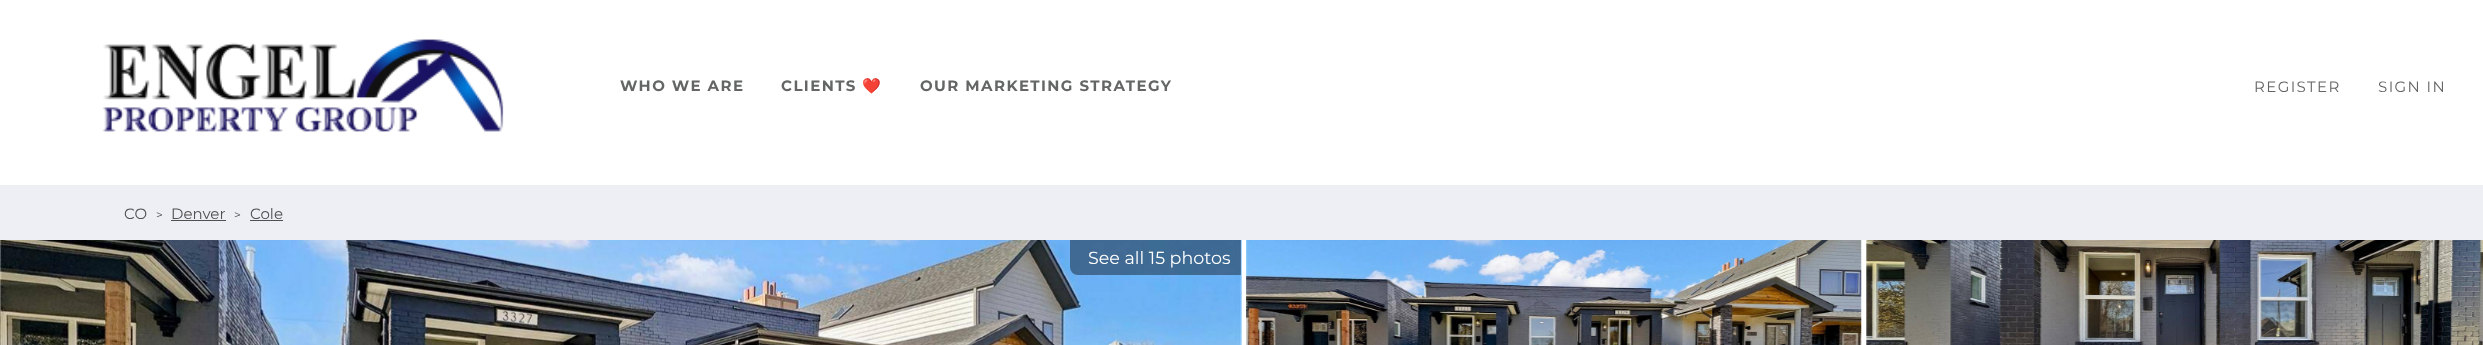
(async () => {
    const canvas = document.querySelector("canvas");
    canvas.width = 2483;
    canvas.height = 345;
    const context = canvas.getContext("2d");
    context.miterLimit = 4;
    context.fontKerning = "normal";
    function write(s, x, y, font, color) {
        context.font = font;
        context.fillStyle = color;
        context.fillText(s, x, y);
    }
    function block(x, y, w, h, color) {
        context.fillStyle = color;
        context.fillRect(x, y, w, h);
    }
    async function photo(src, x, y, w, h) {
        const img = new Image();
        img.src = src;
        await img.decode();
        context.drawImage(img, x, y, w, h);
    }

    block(0, 0, 2483, 345, "rgb(255, 255, 255)");
    await photo("media/1.png", 102, 39, 402, 93);
    context.letterSpacing = "1.4px";
    write("WHO WE ARE", 620, 91, "bold 15px Montserrat", "rgb(100, 101, 101)");
    write("CLIENTS", 781, 91, "bold 15px Montserrat", "rgb(100, 101, 101)");
    write("❤️", 862, 91, "15px Noto Color Emoji", "rgb(100, 101, 101)");
    write("OUR MARKETING STRATEGY", 920, 91, "bold 15px Montserrat", "rgb(100, 101, 101)");
    write("REGISTER", 2254, 92, "15px Montserrat", "rgb(100, 101, 101)");
    write("SIGN IN", 2378, 92, "15px Montserrat", "rgb(100, 101, 101)");
    block(0, 185, 2483, 55, "rgb(238, 239, 245)");
    context.letterSpacing = "0px";
    write("CO", 124, 219, "15px Montserrat", "rgb(80, 80, 80)");
    write(">", 156, 219, "12px Montserrat", "rgb(80, 80, 80)");
    write("Denver", 171, 219, "15px Montserrat", "rgb(80, 80, 80)");
    block(171, 220, 55, 1, "rgb(80, 80, 80)");
    write(">", 234, 219, "12px Montserrat", "rgb(80, 80, 80)");
    write("Cole", 250, 219, "15px Montserrat", "rgb(80, 80, 80)");
    block(250, 220, 33, 1, "rgb(80, 80, 80)");
    await photo("media/2.png", 0, 240, 1242, 105);
    context.fillStyle = "rgba(0, 0, 0, 0.4)";
    context.beginPath();
    context.roundRect(1070, 240, 171, 35, [0, 0, 0, 8]);
    context.fill();
    write("See all 15 photos", 1088, 264, "17.5px Montserrat", "rgb(255, 255, 255)");
    await photo("media/3.png", 1246, 240, 616, 105);
    await photo("media/4.png", 1866, 240, 617, 105);
})();
